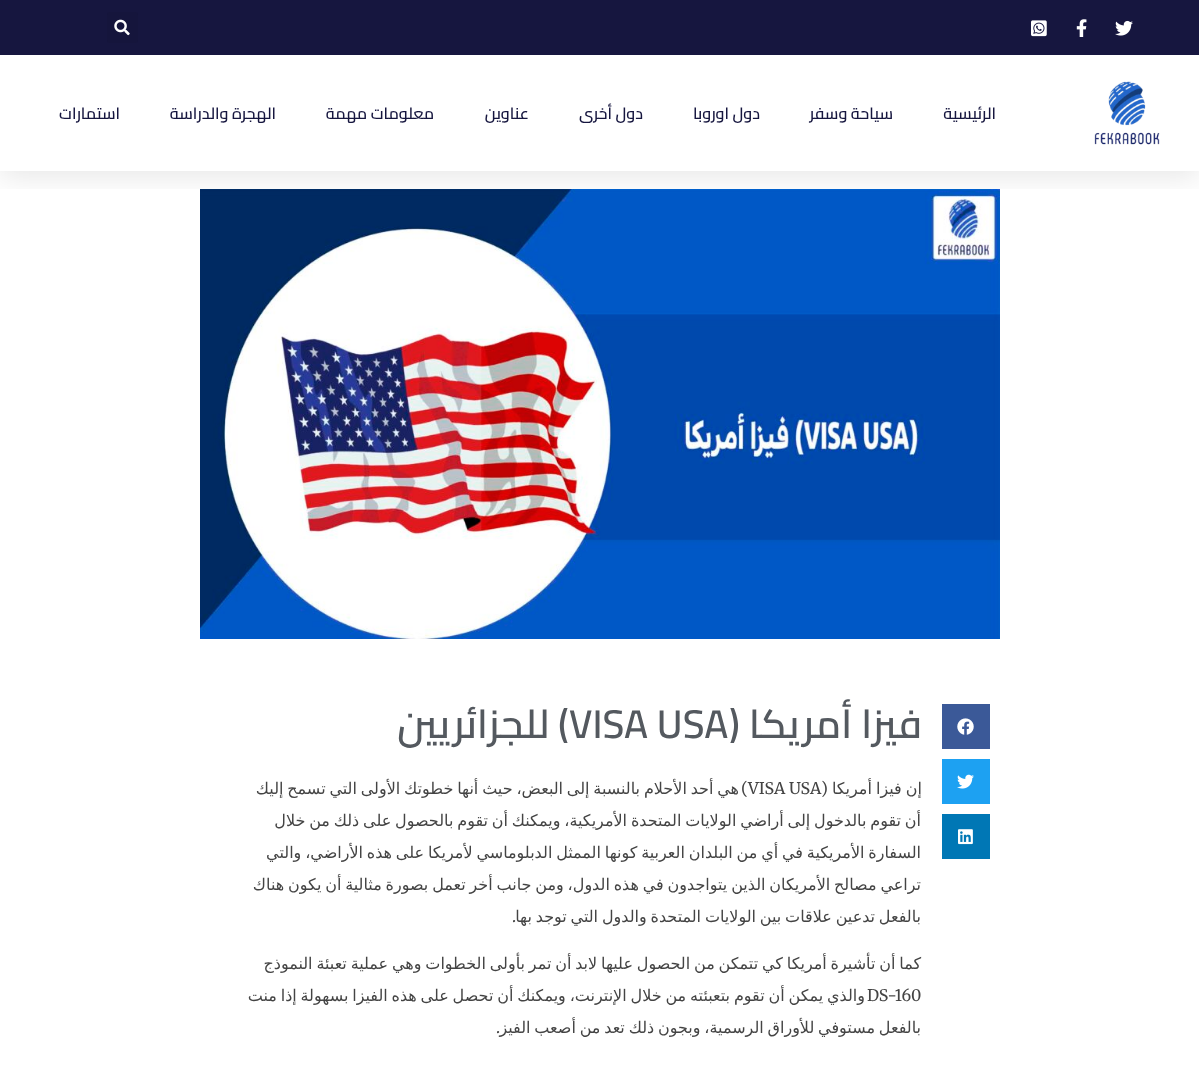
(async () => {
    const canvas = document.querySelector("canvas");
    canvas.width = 1199;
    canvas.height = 1065;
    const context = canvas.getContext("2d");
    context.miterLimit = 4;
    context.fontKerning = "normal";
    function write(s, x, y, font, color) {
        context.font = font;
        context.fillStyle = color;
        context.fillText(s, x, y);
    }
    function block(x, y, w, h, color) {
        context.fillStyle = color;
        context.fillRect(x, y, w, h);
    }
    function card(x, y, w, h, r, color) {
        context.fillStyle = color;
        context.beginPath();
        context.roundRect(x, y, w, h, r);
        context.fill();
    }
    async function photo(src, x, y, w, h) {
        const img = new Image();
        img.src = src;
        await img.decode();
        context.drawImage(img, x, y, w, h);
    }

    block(0, 0, 1199, 1065, "rgb(255, 255, 255)");
    await photo("media/6.png", 200, 189, 800, 450);
    context.save();
    context.beginPath();
    context.rect(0, 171, 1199, 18);
    context.clip();
    context.fillStyle = "rgba(0, 0, 0, 0.1)";
    context.filter = "blur(15px)";
    context.beginPath();
    context.rect(0, 5, 1199, 171);
    context.fill();
    context.filter = "none";
    context.restore();
    block(0, 0, 1199, 55, "rgb(22, 22, 63)");
    await photo("media/1.png", 1115, 20, 18, 16);
    await photo("media/2.png", 1076, 19, 11, 18);
    await photo("media/3.png", 1031, 20, 16, 17);
    card(107, 12, 31, 31, 3, "rgb(21, 21, 60)");
    await photo("media/4.png", 114, 19, 16, 17);
    await photo("media/5.png", 1094, 81, 66, 64);
    context.direction = "rtl";
    write("الرئيسية", 996, 119, "600 16px Cairo", "rgb(22, 22, 63)");
    write("سياحة وسفر", 893, 119, "600 16px Cairo", "rgb(22, 22, 63)");
    write("دول اوروبا", 760, 119, "600 16px Cairo", "rgb(22, 22, 63)");
    write("دول أخرى", 643, 119, "600 16px Cairo", "rgb(22, 22, 63)");
    write("عناوين", 529, 119, "600 16px Cairo", "rgb(22, 22, 63)");
    write("معلومات مهمة", 434, 119, "600 16px Cairo", "rgb(22, 22, 63)");
    write("الهجرة والدراسة", 276, 119, "600 16px Cairo", "rgb(22, 22, 63)");
    write("استمارات", 120, 119, "600 16px Cairo", "rgb(22, 22, 63)");
    block(942, 704, 48, 45, "rgb(59, 89, 152)");
    await photo("media/7.png", 957, 718, 17, 17);
    block(942, 759, 48, 45, "rgb(29, 161, 242)");
    await photo("media/8.png", 957, 774, 17, 15);
    block(942, 814, 48, 45, "rgb(0, 119, 181)");
    await photo("media/9.png", 958, 829, 15, 16);
    write("فيزا أمريكا (", 922, 738, "600 40px Cairo", "rgb(84, 89, 95)");
    context.direction = "ltr";
    write("VISA USA", 569, 738, "600 40px Cairo", "rgb(84, 89, 95)");
    context.direction = "rtl";
    write(") للجزائريين", 569, 738, "600 40px Cairo", "rgb(84, 89, 95)");
    context.wordSpacing = "-1px";
    write("إن فيزا أمريكا", 922, 794, "16px DejaVu Sans", "rgb(68, 68, 68)");
    context.wordSpacing = "-1.25px";
    write("هي أحد الأحلام بالنسبة إلى البعض، حيث أنها خطوتك الأولى التي تسمح إليك", 739, 794, "16px DejaVu Sans", "rgb(68, 68, 68)");
    context.wordSpacing = "0px";
    write("(", 828, 794, "16px Merriweather", "rgb(68, 68, 68)");
    context.direction = "ltr";
    write("VISA USA", 748, 794, "16px Merriweather", "rgb(68, 68, 68)");
    context.direction = "rtl";
    write(")", 748, 794, "16px Merriweather", "rgb(68, 68, 68)");
    context.wordSpacing = "-1.25px";
    write("أن تقوم بالدخول إلى أراضي الولايات المتحدة الأمريكية، ويمكنك أن تقوم بالحصول على ذلك من خلال", 921, 826, "16px DejaVu Sans", "rgb(68, 68, 68)");
    write("السفارة الأمريكية في أي من البلدان العربية كونها الممثل الدبلوماسي لأمريكا على هذه الأراضي، والتي", 921, 858, "16px DejaVu Sans", "rgb(68, 68, 68)");
    write("تراعي مصالح الأمريكان الذين يتواجدون في هذه الدول، ومن جانب أخر تعمل بصورة مثالية أن يكون هناك", 921, 890, "16px DejaVu Sans", "rgb(68, 68, 68)");
    write("بالفعل تدعين علاقات بين الولايات المتحدة والدول التي توجد بها", 921, 922, "16px DejaVu Sans", "rgb(68, 68, 68)");
    context.wordSpacing = "0px";
    write(".", 516, 922, "16px Merriweather", "rgb(68, 68, 68)");
    context.wordSpacing = "-1.25px";
    write("كما أن تأشيرة أمريكا كي تتمكن من الحصول عليها لابد أن تمر بأولى الخطوات وهي عملية تعبئة النموذج", 921, 969, "16px DejaVu Sans", "rgb(68, 68, 68)");
    write("والذي يمكن أن تقوم بتعبئته من خلال الإنترنت، ويمكنك أن تحصل على هذه الفيزا بسهولة إذا منت", 865, 1001, "16px DejaVu Sans", "rgb(68, 68, 68)");
    context.wordSpacing = "0px";
    context.direction = "ltr";
    write("DS-160", 867, 1001, "16px Merriweather", "rgb(68, 68, 68)");
    context.direction = "rtl";
    write(".", 500, 1033, "16px Merriweather", "rgb(68, 68, 68)");
    context.wordSpacing = "-1.25px";
    write("بالفعل مستوفي للأوراق الرسمية، وبجون ذلك تعد من أصعب الفيز", 921, 1033, "16px DejaVu Sans", "rgb(68, 68, 68)");
})();
